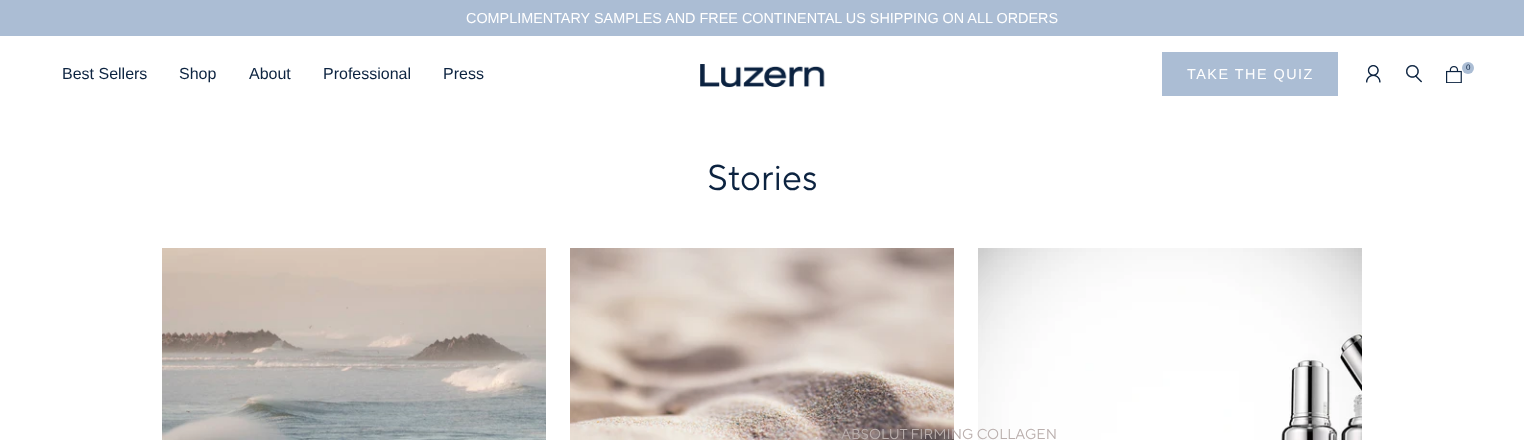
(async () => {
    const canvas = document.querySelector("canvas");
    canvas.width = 1524;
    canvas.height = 440;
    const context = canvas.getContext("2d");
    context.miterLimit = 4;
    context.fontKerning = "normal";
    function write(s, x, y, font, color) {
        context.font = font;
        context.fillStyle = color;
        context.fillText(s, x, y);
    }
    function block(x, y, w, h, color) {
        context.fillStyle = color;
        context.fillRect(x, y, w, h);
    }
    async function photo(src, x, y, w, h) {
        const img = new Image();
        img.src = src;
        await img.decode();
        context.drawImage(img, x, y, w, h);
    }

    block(0, 0, 1524, 440, "rgb(255, 255, 255)");
    block(0, 0, 1524, 36, "rgb(171, 189, 212)");
    write("COMPLIMENTARY SAMPLES AND FREE CONTINENTAL US SHIPPING ON ALL ORDERS", 466, 23, "14.4px Liberation Sans", "rgb(255, 255, 255)");
    write("Best Sellers", 62, 79, "16px Liberation Sans", "rgb(12, 35, 64)");
    write("Shop", 179, 79, "16px Liberation Sans", "rgb(12, 35, 64)");
    write("About", 249, 79, "16px Liberation Sans", "rgb(12, 35, 64)");
    write("Professional", 323, 79, "16px Liberation Sans", "rgb(12, 35, 64)");
    write("Press", 443, 79, "16px Liberation Sans", "rgb(12, 35, 64)");
    await photo("media/1.png", 700, 64, 125, 24);
    block(1162, 52, 176, 44, "rgb(171, 189, 212)");
    context.letterSpacing = "1.5px";
    write("TAKE THE QUIZ", 1187, 79, "14.4px Liberation Sans", "rgb(255, 255, 255)");
    await photo("media/2.png", 1366, 65, 15, 18);
    await photo("media/3.png", 1406, 65, 16, 18);
    await photo("media/4.png", 1446, 66, 16, 17);
    context.fillStyle = "rgb(171, 189, 212)";
    context.beginPath();
    context.arc(1468, 68, 6, 0, Math.PI * 2);
    context.fill();
    context.letterSpacing = "0px";
    write("0", 1466, 70, "8px Liberation Sans", "rgb(12, 35, 64)");
    await photo("media/6.png", 570, 248, 384, 192);
    await photo("media/7.png", 978, 248, 384, 192);
    write("ABSOLUT FIRMING COLLAGEN", 841, 439, "14.4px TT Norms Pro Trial", "rgb(186, 175, 173)");
    write("Stories", 707, 190, "36px TT Norms Pro Trial", "rgb(12, 35, 64)");
    await photo("media/5.png", 162, 248, 384, 192);
})();
